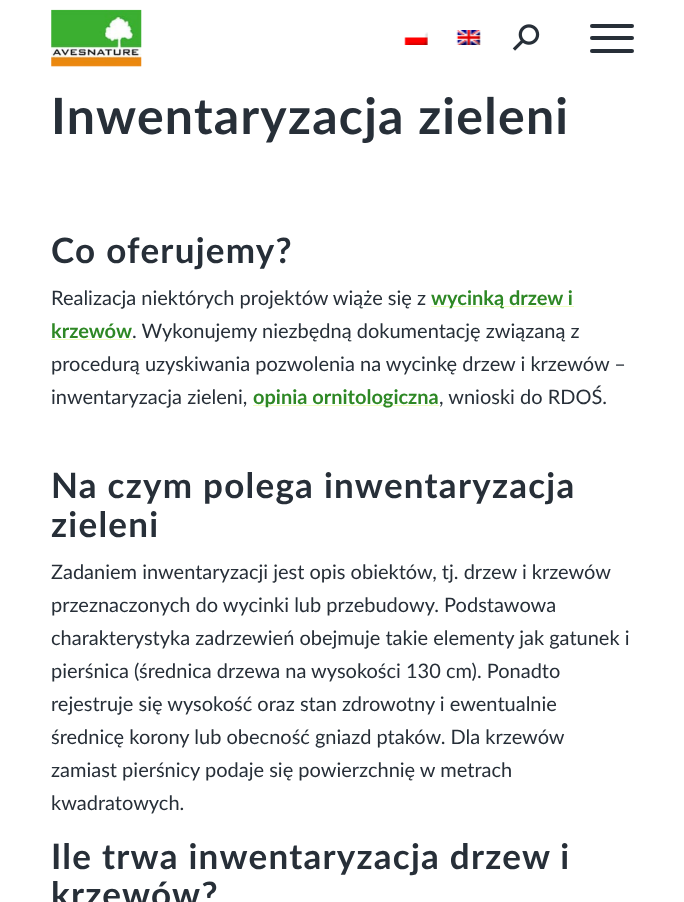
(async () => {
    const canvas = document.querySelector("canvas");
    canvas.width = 684;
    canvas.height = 902;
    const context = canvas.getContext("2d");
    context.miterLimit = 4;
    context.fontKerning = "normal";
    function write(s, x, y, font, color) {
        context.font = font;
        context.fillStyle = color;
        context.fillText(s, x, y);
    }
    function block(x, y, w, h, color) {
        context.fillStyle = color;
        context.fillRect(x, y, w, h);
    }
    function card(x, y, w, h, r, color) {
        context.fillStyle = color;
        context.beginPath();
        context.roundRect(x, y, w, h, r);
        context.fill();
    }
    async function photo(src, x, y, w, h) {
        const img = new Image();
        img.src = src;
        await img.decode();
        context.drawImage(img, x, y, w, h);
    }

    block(0, 0, 684, 902, "rgb(255, 255, 255)");
    await photo("media/1.png", 51, 9, 91, 58);
    await photo("media/2.png", 404, 32, 24, 13);
    await photo("media/3.png", 456, 30, 25, 15);
    await photo("media/4.png", 512, 24, 28, 27);
    card(590, 36, 44, 4, 2, "rgb(39, 47, 56)");
    card(590, 24, 44, 4, 2, "rgb(39, 47, 56)");
    card(590, 49, 44, 4, 2, "rgb(39, 47, 56)");
    context.letterSpacing = "1.25px";
    write("Inwentaryzacja zieleni", 51, 134, "bold 50px Lato", "rgb(39, 47, 56)");
    write("Co oferujemy?", 51, 263, "bold 35px Lato", "rgb(39, 47, 56)");
    context.letterSpacing = "0px";
    write("Realizacja niektórych projektów wiąże się z", 51, 305, "20px Lato", "rgb(39, 47, 56)");
    block(431, 306, 143, 1, "rgb(239, 255, 191)");
    write("wycinką drzew i", 431, 305, "bold 20px Lato", "rgb(46, 136, 37)");
    write("krzewów", 51, 338, "bold 20px Lato", "rgb(46, 136, 37)");
    block(51, 339, 82, 1, "rgb(239, 255, 191)");
    write(". Wykonujemy niezbędną dokumentację związaną z", 132, 338, "20px Lato", "rgb(39, 47, 56)");
    write("procedurą uzyskiwania pozwolenia na wycinkę drzew i krzewów –", 51, 371, "20px Lato", "rgb(39, 47, 56)");
    write("inwentaryzacja zieleni,", 51, 404, "20px Lato", "rgb(39, 47, 56)");
    block(253, 405, 186, 1, "rgb(239, 255, 191)");
    write("opinia ornitologiczna", 253, 404, "bold 20px Lato", "rgb(46, 136, 37)");
    write(", wnioski do RDOŚ.", 439, 404, "20px Lato", "rgb(39, 47, 56)");
    context.letterSpacing = "1.25px";
    write("Na czym polega inwentaryzacja", 51, 498, "bold 35px Lato", "rgb(39, 47, 56)");
    write("zieleni", 51, 537, "bold 35px Lato", "rgb(39, 47, 56)");
    context.letterSpacing = "0px";
    write("Zadaniem inwentaryzacji jest opis obiektów, tj. drzew i krzewów", 51, 579, "20px Lato", "rgb(39, 47, 56)");
    write("przeznaczonych do wycinki lub przebudowy. Podstawowa", 51, 612, "20px Lato", "rgb(39, 47, 56)");
    write("charakterystyka zadrzewień obejmuje takie elementy jak gatunek i", 51, 645, "20px Lato", "rgb(39, 47, 56)");
    write("pierśnica (średnica drzewa na wysokości 130 cm). Ponadto", 51, 678, "20px Lato", "rgb(39, 47, 56)");
    write("rejestruje się wysokość oraz stan zdrowotny i ewentualnie", 51, 711, "20px Lato", "rgb(39, 47, 56)");
    write("średnicę korony lub obecność gniazd ptaków. Dla krzewów", 51, 744, "20px Lato", "rgb(39, 47, 56)");
    write("zamiast pierśnicy podaje się powierzchnię w metrach", 51, 777, "20px Lato", "rgb(39, 47, 56)");
    write("kwadratowych.", 51, 810, "20px Lato", "rgb(39, 47, 56)");
    context.letterSpacing = "1.25px";
    write("Ile trwa inwentaryzacja drzew i", 51, 869, "bold 35px Lato", "rgb(39, 47, 56)");
    write("krzewów?", 51, 907, "bold 35px Lato", "rgb(39, 47, 56)");
})();
